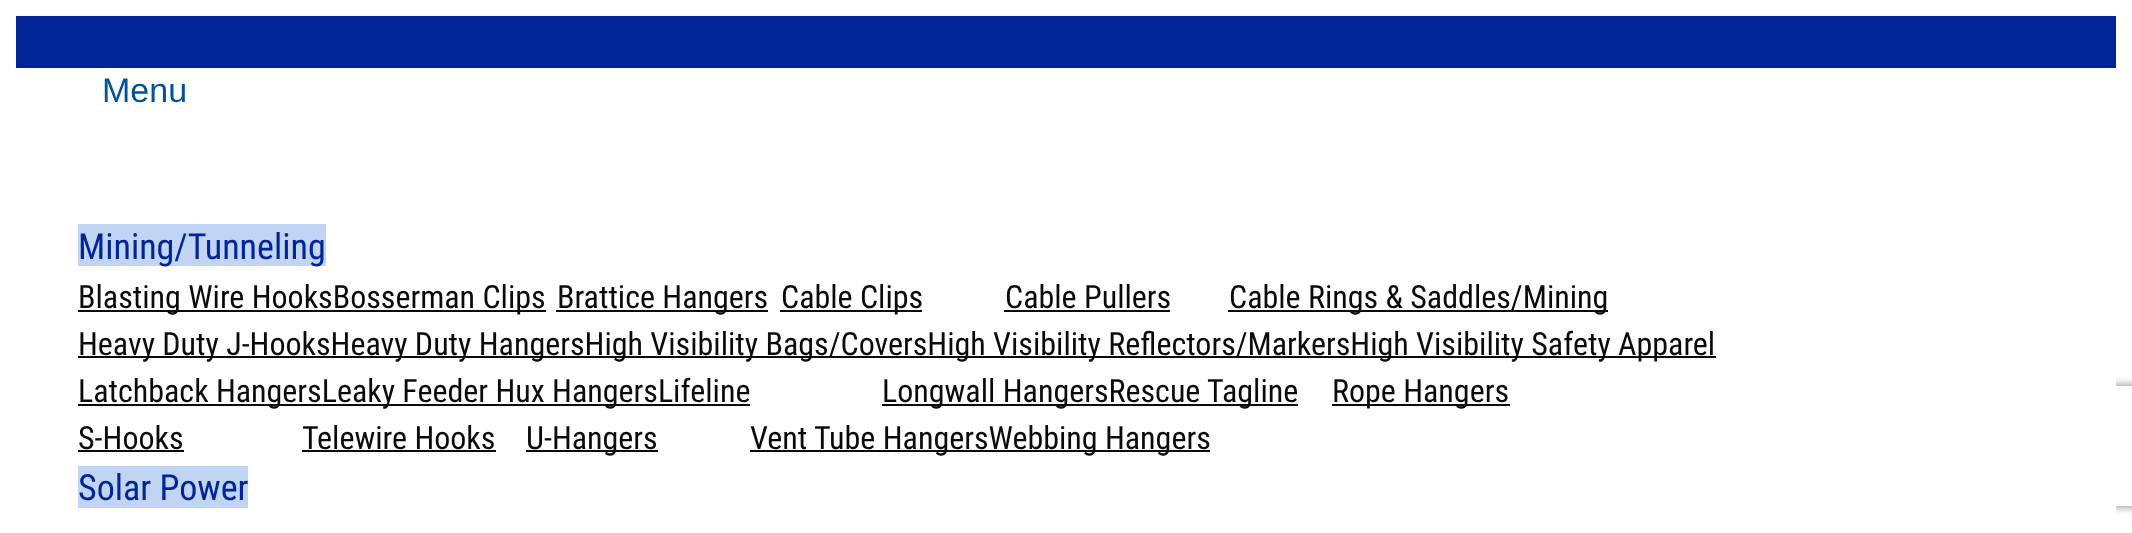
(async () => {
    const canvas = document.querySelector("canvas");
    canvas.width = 2132;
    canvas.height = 533;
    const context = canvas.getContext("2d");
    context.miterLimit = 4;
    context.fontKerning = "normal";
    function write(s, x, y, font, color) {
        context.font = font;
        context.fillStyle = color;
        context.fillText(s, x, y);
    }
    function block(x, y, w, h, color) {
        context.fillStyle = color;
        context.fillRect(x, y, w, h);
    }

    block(0, 0, 2132, 533, "rgb(255, 255, 255)");
    block(16, 16, 2100, 52, "rgb(0, 37, 151)");
    context.save();
    context.beginPath();
    context.moveTo(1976, 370);
    context.lineTo(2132, 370);
    context.lineTo(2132, 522);
    context.lineTo(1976, 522);
    context.closePath();
    context.moveTo(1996, 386);
    context.lineTo(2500, 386);
    context.bezierCurveTo(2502, 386, 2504, 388, 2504, 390);
    context.lineTo(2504, 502);
    context.bezierCurveTo(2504, 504, 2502, 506, 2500, 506);
    context.lineTo(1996, 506);
    context.bezierCurveTo(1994, 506, 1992, 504, 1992, 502);
    context.lineTo(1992, 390);
    context.bezierCurveTo(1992, 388, 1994, 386, 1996, 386);
    context.closePath();
    context.clip("evenodd");
    context.fillStyle = "rgb(128, 128, 128)";
    context.filter = "blur(5px)";
    context.beginPath();
    context.roundRect(1992, 386, 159, 120, 4);
    context.fill();
    context.filter = "none";
    context.restore();
    block(1982, 376, 134, 140, "rgb(255, 255, 255)");
    write("Menu", 102, 102, "34px Liberation Sans", "rgb(0, 82, 156)");
    block(78, 224, 248, 42, "rgb(193, 212, 244)");
    write("Mining/Tunneling", 78, 259, "36px Roboto Condensed", "rgb(0, 37, 150)");
    block(78, 310, 468, 2, "rgb(10, 10, 10)");
    write("Blasting Wire HooksBosserman Clips", 78, 308, "32px Roboto Condensed", "rgb(10, 10, 10)");
    block(556, 310, 212, 2, "rgb(10, 10, 10)");
    write("Brattice Hangers", 557, 308, "32px Roboto Condensed", "rgb(10, 10, 10)");
    block(780, 310, 142, 2, "rgb(10, 10, 10)");
    write("Cable Clips", 781, 308, "32px Roboto Condensed", "rgb(10, 10, 10)");
    write("Cable Pullers", 1005, 308, "32px Roboto Condensed", "rgb(10, 10, 10)");
    block(1004, 310, 166, 2, "rgb(10, 10, 10)");
    block(1228, 310, 380, 2, "rgb(10, 10, 10)");
    write("Cable Rings & Saddles/Mining", 1229, 308, "32px Roboto Condensed", "rgb(10, 10, 10)");
    block(78, 356, 1638, 2, "rgb(10, 10, 10)");
    write("Heavy Duty J-HooksHeavy Duty HangersHigh Visibility Bags/CoversHigh Visibility Reflectors/MarkersHigh Visibility Safety Apparel", 78, 355, "32px Roboto Condensed", "rgb(10, 10, 10)");
    block(78, 404, 672, 2, "rgb(10, 10, 10)");
    write("Latchback HangersLeaky Feeder Hux HangersLifeline", 78, 402, "32px Roboto Condensed", "rgb(10, 10, 10)");
    block(882, 404, 416, 2, "rgb(10, 10, 10)");
    write("Longwall HangersRescue Tagline", 882, 402, "32px Roboto Condensed", "rgb(10, 10, 10)");
    block(1332, 404, 178, 2, "rgb(10, 10, 10)");
    write("Rope Hangers", 1332, 402, "32px Roboto Condensed", "rgb(10, 10, 10)");
    write("S-Hooks", 78, 449, "32px Roboto Condensed", "rgb(10, 10, 10)");
    block(78, 450, 106, 2, "rgb(10, 10, 10)");
    write("Telewire Hooks", 302, 449, "32px Roboto Condensed", "rgb(10, 10, 10)");
    block(302, 450, 194, 2, "rgb(10, 10, 10)");
    block(526, 450, 132, 2, "rgb(10, 10, 10)");
    write("U-Hangers", 526, 449, "32px Roboto Condensed", "rgb(10, 10, 10)");
    block(750, 450, 460, 2, "rgb(10, 10, 10)");
    write("Vent Tube HangersWebbing Hangers", 750, 449, "32px Roboto Condensed", "rgb(10, 10, 10)");
    block(78, 466, 170, 42, "rgb(193, 212, 244)");
    write("Solar Power", 78, 500, "36px Roboto Condensed", "rgb(0, 37, 150)");
})();
